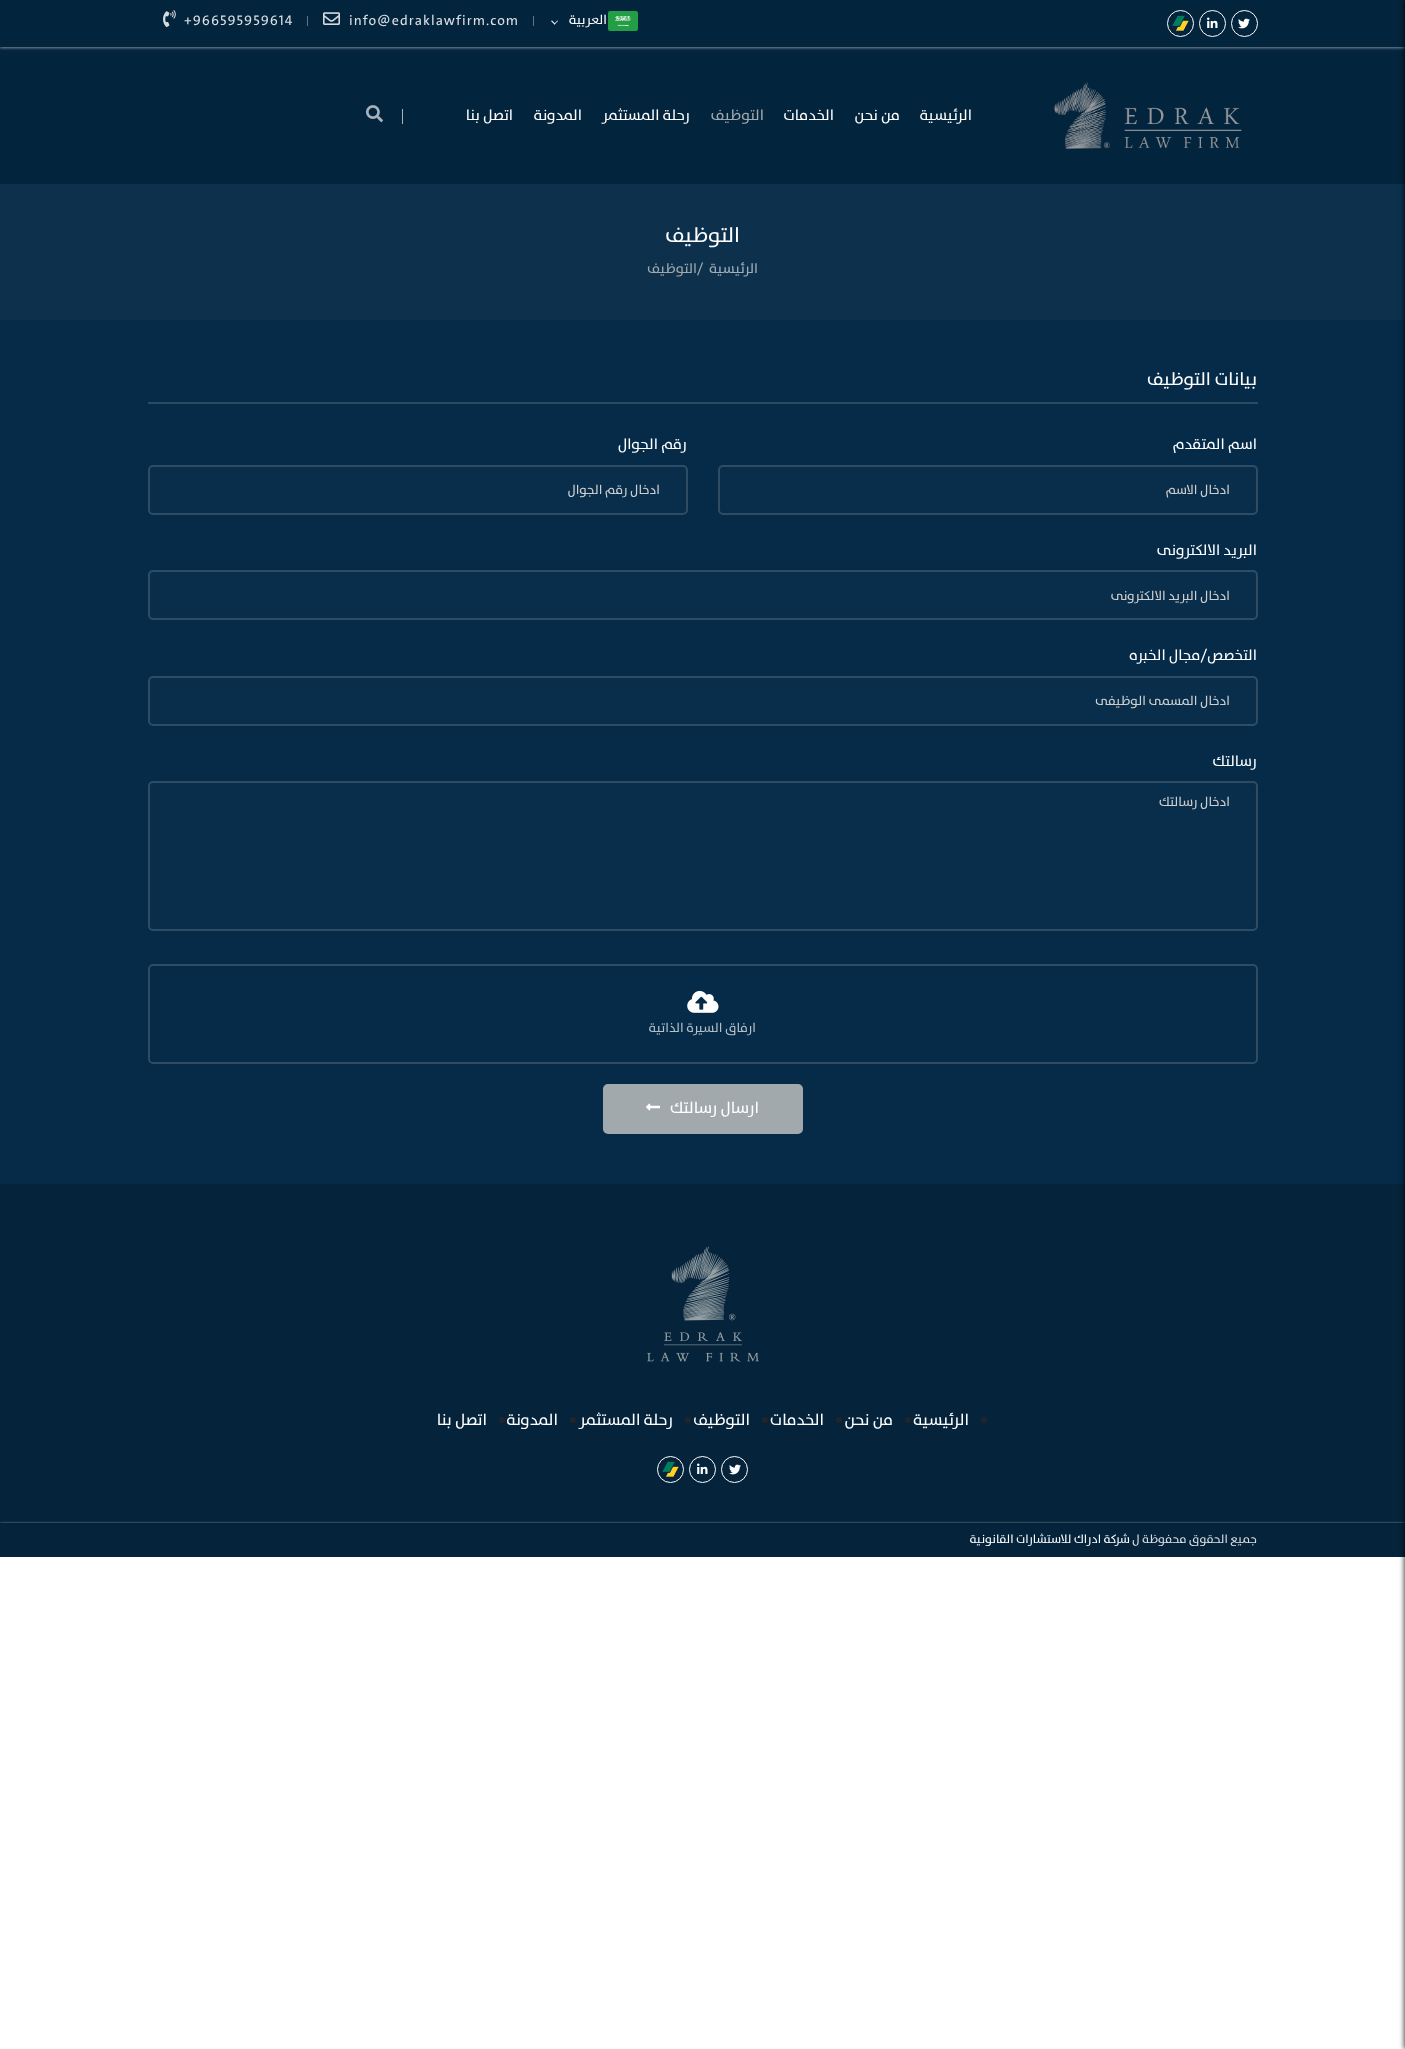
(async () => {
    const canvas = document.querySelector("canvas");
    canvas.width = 1405;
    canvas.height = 2049;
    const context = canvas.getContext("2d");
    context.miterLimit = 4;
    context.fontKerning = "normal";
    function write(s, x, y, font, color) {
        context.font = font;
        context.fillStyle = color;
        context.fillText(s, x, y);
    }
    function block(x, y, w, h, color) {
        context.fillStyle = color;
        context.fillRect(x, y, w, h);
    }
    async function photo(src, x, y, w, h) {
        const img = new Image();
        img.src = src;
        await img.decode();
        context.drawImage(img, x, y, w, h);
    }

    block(0, 0, 1405, 2049, "rgb(255, 255, 255)");
    block(0, 47, 1405, 137, "rgb(3, 36, 61)");
    context.fillStyle = "rgba(255, 255, 255, 0.48)";
    context.filter = "blur(1.5px)";
    context.beginPath();
    context.rect(0, 1, 1405, 47);
    context.fill();
    context.filter = "none";
    block(0, 0, 1405, 47, "rgb(3, 36, 61)");
    block(0, 184, 1405, 136, "rgb(13, 49, 77)");
    block(0, 320, 1405, 864, "rgb(5, 43, 72)");
    block(0, 1184, 1405, 339, "rgb(5, 36, 59)");
    context.fillStyle = "rgba(255, 255, 255, 0.48)";
    context.filter = "blur(1px)";
    context.beginPath();
    context.rect(0, 1523, 1405, 34);
    context.fill();
    context.filter = "none";
    block(0, 1523, 1405, 34, "rgb(5, 36, 59)");
    context.fillStyle = "rgba(0, 0, 0, 0.7)";
    context.filter = "blur(2.5px)";
    context.beginPath();
    context.rect(1404, 0, 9, 2049);
    context.fill();
    context.filter = "none";
    context.beginPath();
    context.arc(1244.5, 23.5, 13, 0, Math.PI * 2);
    context.strokeStyle = "rgb(255, 255, 255)";
    context.stroke();
    await photo("media/1.png", 1238, 18, 12, 11);
    context.beginPath();
    context.arc(1212.5, 23.5, 13, 0, Math.PI * 2);
    context.stroke();
    await photo("media/2.png", 1207, 17, 11, 11);
    context.beginPath();
    context.arc(1180.5, 23.5, 13, 0, Math.PI * 2);
    context.stroke();
    await photo("media/3.png", 1172, 15, 17, 16);
    await photo("media/4.png", 608, 11, 30, 20);
    context.letterSpacing = "1px";
    context.direction = "rtl";
    write("العربية", 607, 24, "500 13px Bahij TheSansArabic", "rgb(255, 255, 255)");
    context.beginPath();
    context.moveTo(557.5, 20.5);
    context.lineTo(558, 21);
    context.lineTo(554.5, 24.5);
    context.lineTo(554, 24);
    context.closePath();
    context.fill();
    context.beginPath();
    context.moveTo(552, 20.5);
    context.lineTo(555.5, 24);
    context.lineTo(554.5, 24.5);
    context.lineTo(551, 21);
    context.closePath();
    context.fill();
    block(533, 16, 1, 10, "rgb(96, 117, 133)");
    context.direction = "ltr";
    write("info@edraklawfirm.com", 349, 25, "500 14px Bahij TheSansArabic", "rgb(218, 222, 226)");
    await photo("media/5.png", 323, 12, 17, 13);
    block(307, 16, 1, 10, "rgb(96, 117, 133)");
    write("+966595959614", 184, 25, "500 14px Bahij TheSansArabic", "rgb(218, 222, 226)");
    await photo("media/6.png", 163, 10, 13, 18);
    await photo("media/7.png", 1054, 82, 188, 67);
    context.letterSpacing = "0px";
    context.direction = "rtl";
    write("الرئيسية", 972, 120, "500 15px Bahij TheSansArabic", "rgb(255, 255, 255)");
    write("من نحن", 900, 120, "500 15px Bahij TheSansArabic", "rgb(255, 255, 255)");
    write("الخدمات", 834, 120, "500 15px Bahij TheSansArabic", "rgb(255, 255, 255)");
    write("التوظيف", 764, 120, "500 15px Bahij TheSansArabic", "rgb(162, 169, 173)");
    write("رحلة المستثمر", 690, 120, "500 15px Bahij TheSansArabic", "rgb(255, 255, 255)");
    write("المدونة", 582, 120, "500 15px Bahij TheSansArabic", "rgb(255, 255, 255)");
    write("اتصل بنا", 513, 120, "500 15px Bahij TheSansArabic", "rgb(255, 255, 255)");
    block(402, 109, 1, 15, "rgb(167, 178, 187)");
    await photo("media/8.png", 366, 105, 17, 18);
    write("التوظيف", 740, 242, "500 21px Bahij TheSansArabic", "rgb(255, 255, 255)");
    write("الرئيسية", 758, 273, "500 14px Bahij TheSansArabic", "rgb(161, 175, 186)");
    context.direction = "ltr";
    write("/", 697, 273, "500 14px Bahij TheSansArabic", "rgb(161, 175, 186)");
    context.direction = "rtl";
    write("التوظيف", 697, 273, "500 14px Bahij TheSansArabic", "rgb(162, 169, 173)");
    block(148, 402, 1110, 2, "rgb(43, 75, 99)");
    write("بيانات التوظيف", 1257, 385, "500 18px Bahij TheSansArabic", "rgb(255, 255, 255)");
    write("اسم المتقدم", 1257, 449, "500 15px Bahij TheSansArabic", "rgb(255, 255, 255)");
    context.fillStyle = "rgb(9, 46, 75)";
    context.beginPath();
    context.roundRect(719, 466, 538, 48, 4);
    context.fill();
    context.strokeStyle = "rgb(46, 77, 101)";
    context.lineWidth = 2;
    context.stroke();
    write("ادخال الاسم", 1230, 494, "500 13px Bahij TheSansArabic", "rgb(207, 207, 207)");
    write("رقم الجوال", 687, 449, "500 15px Bahij TheSansArabic", "rgb(255, 255, 255)");
    context.fillStyle = "rgb(9, 46, 75)";
    context.beginPath();
    context.roundRect(149, 466, 538, 48, 4);
    context.fill();
    context.stroke();
    write("ادخال رقم الجوال", 660, 494, "500 13px Bahij TheSansArabic", "rgb(207, 207, 207)");
    write("البريد الالكترونى", 1257, 555, "500 15px Bahij TheSansArabic", "rgb(255, 255, 255)");
    context.fillStyle = "rgb(9, 46, 75)";
    context.beginPath();
    context.roundRect(149, 571, 1108, 48, 4);
    context.fill();
    context.stroke();
    write("ادخال البريد الالكترونى", 1230, 600, "500 13px Bahij TheSansArabic", "rgb(207, 207, 207)");
    write("التخصص/مجال الخبره", 1257, 660, "500 15px Bahij TheSansArabic", "rgb(255, 255, 255)");
    context.fillStyle = "rgb(9, 46, 75)";
    context.beginPath();
    context.roundRect(149, 677, 1108, 48, 4);
    context.fill();
    context.stroke();
    write("ادخال المسمى الوظيفى", 1230, 705, "500 13px Bahij TheSansArabic", "rgb(207, 207, 207)");
    write("رسالتك", 1257, 766, "500 15px Bahij TheSansArabic", "rgb(255, 255, 255)");
    context.fillStyle = "rgb(9, 46, 75)";
    context.beginPath();
    context.roundRect(149, 782, 1108, 148, 4);
    context.fill();
    context.stroke();
    write("ادخال رسالتك", 1230, 806, "500 13px Bahij TheSansArabic", "rgb(207, 207, 207)");
    context.beginPath();
    context.roundRect(149, 965, 1108, 98, 4);
    context.stroke();
    await photo("media/9.png", 687, 990, 32, 23);
    write("ارفاق السيرة الذاتية", 756, 1032, "500 13px Bahij TheSansArabic", "rgb(180, 191, 200)");
    context.fillStyle = "rgb(162, 169, 173)";
    context.beginPath();
    context.roundRect(604, 1085, 198, 48, 4);
    context.fill();
    context.strokeStyle = "rgb(162, 169, 173)";
    context.stroke();
    write("ارسال رسالتك", 759, 1113, "500 16px Bahij TheSansArabic", "rgb(255, 255, 255)");
    await photo("media/10.png", 646, 1103, 14, 8);
    await photo("media/11.png", 647, 1246, 112, 116);
    context.fillStyle = "rgb(33, 37, 41)";
    context.beginPath();
    context.arc(984, 1420, 3, 0, Math.PI * 2);
    context.fill();
    write("الرئيسية", 969, 1425, "500 16px Bahij TheSansArabic", "rgb(255, 255, 255)");
    context.fillStyle = "rgb(33, 37, 41)";
    context.beginPath();
    context.arc(908, 1420, 3, 0, Math.PI * 2);
    context.fill();
    write("من نحن", 893, 1425, "500 16px Bahij TheSansArabic", "rgb(255, 255, 255)");
    context.fillStyle = "rgb(33, 37, 41)";
    context.beginPath();
    context.arc(839, 1420, 3, 0, Math.PI * 2);
    context.fill();
    write("الخدمات", 824, 1425, "500 16px Bahij TheSansArabic", "rgb(255, 255, 255)");
    context.fillStyle = "rgb(33, 37, 41)";
    context.beginPath();
    context.arc(765, 1420, 3, 0, Math.PI * 2);
    context.fill();
    write("التوظيف", 750, 1425, "500 16px Bahij TheSansArabic", "rgb(255, 255, 255)");
    context.fillStyle = "rgb(33, 37, 41)";
    context.beginPath();
    context.arc(688, 1420, 3, 0, Math.PI * 2);
    context.fill();
    write("رحلة المستثمر", 673, 1425, "500 16px Bahij TheSansArabic", "rgb(255, 255, 255)");
    context.fillStyle = "rgb(33, 37, 41)";
    context.beginPath();
    context.arc(573, 1420, 3, 0, Math.PI * 2);
    context.fill();
    write("المدونة", 558, 1425, "500 16px Bahij TheSansArabic", "rgb(255, 255, 255)");
    context.fillStyle = "rgb(33, 37, 41)";
    context.beginPath();
    context.arc(502, 1420, 3, 0, Math.PI * 2);
    context.fill();
    write("اتصل بنا", 487, 1425, "500 16px Bahij TheSansArabic", "rgb(255, 255, 255)");
    context.beginPath();
    context.arc(734.5, 1469.5, 13, 0, Math.PI * 2);
    context.strokeStyle = "rgb(255, 255, 255)";
    context.lineWidth = 1;
    context.stroke();
    await photo("media/12.png", 729, 1464, 12, 11);
    context.beginPath();
    context.arc(702.5, 1469.5, 13, 0, Math.PI * 2);
    context.stroke();
    await photo("media/13.png", 697, 1463, 11, 11);
    context.beginPath();
    context.arc(670.5, 1469.5, 13, 0, Math.PI * 2);
    context.stroke();
    await photo("media/14.png", 662, 1461, 17, 16);
    write("جميع الحقوق محفوظة ل", 1257, 1543, "500 12px Bahij TheSansArabic", "rgb(218, 222, 226)");
    write("شركة ادراك للاستشارات القانونية", 1130, 1543, "500 12px Bahij TheSansArabic", "rgb(255, 255, 255)");
})();
